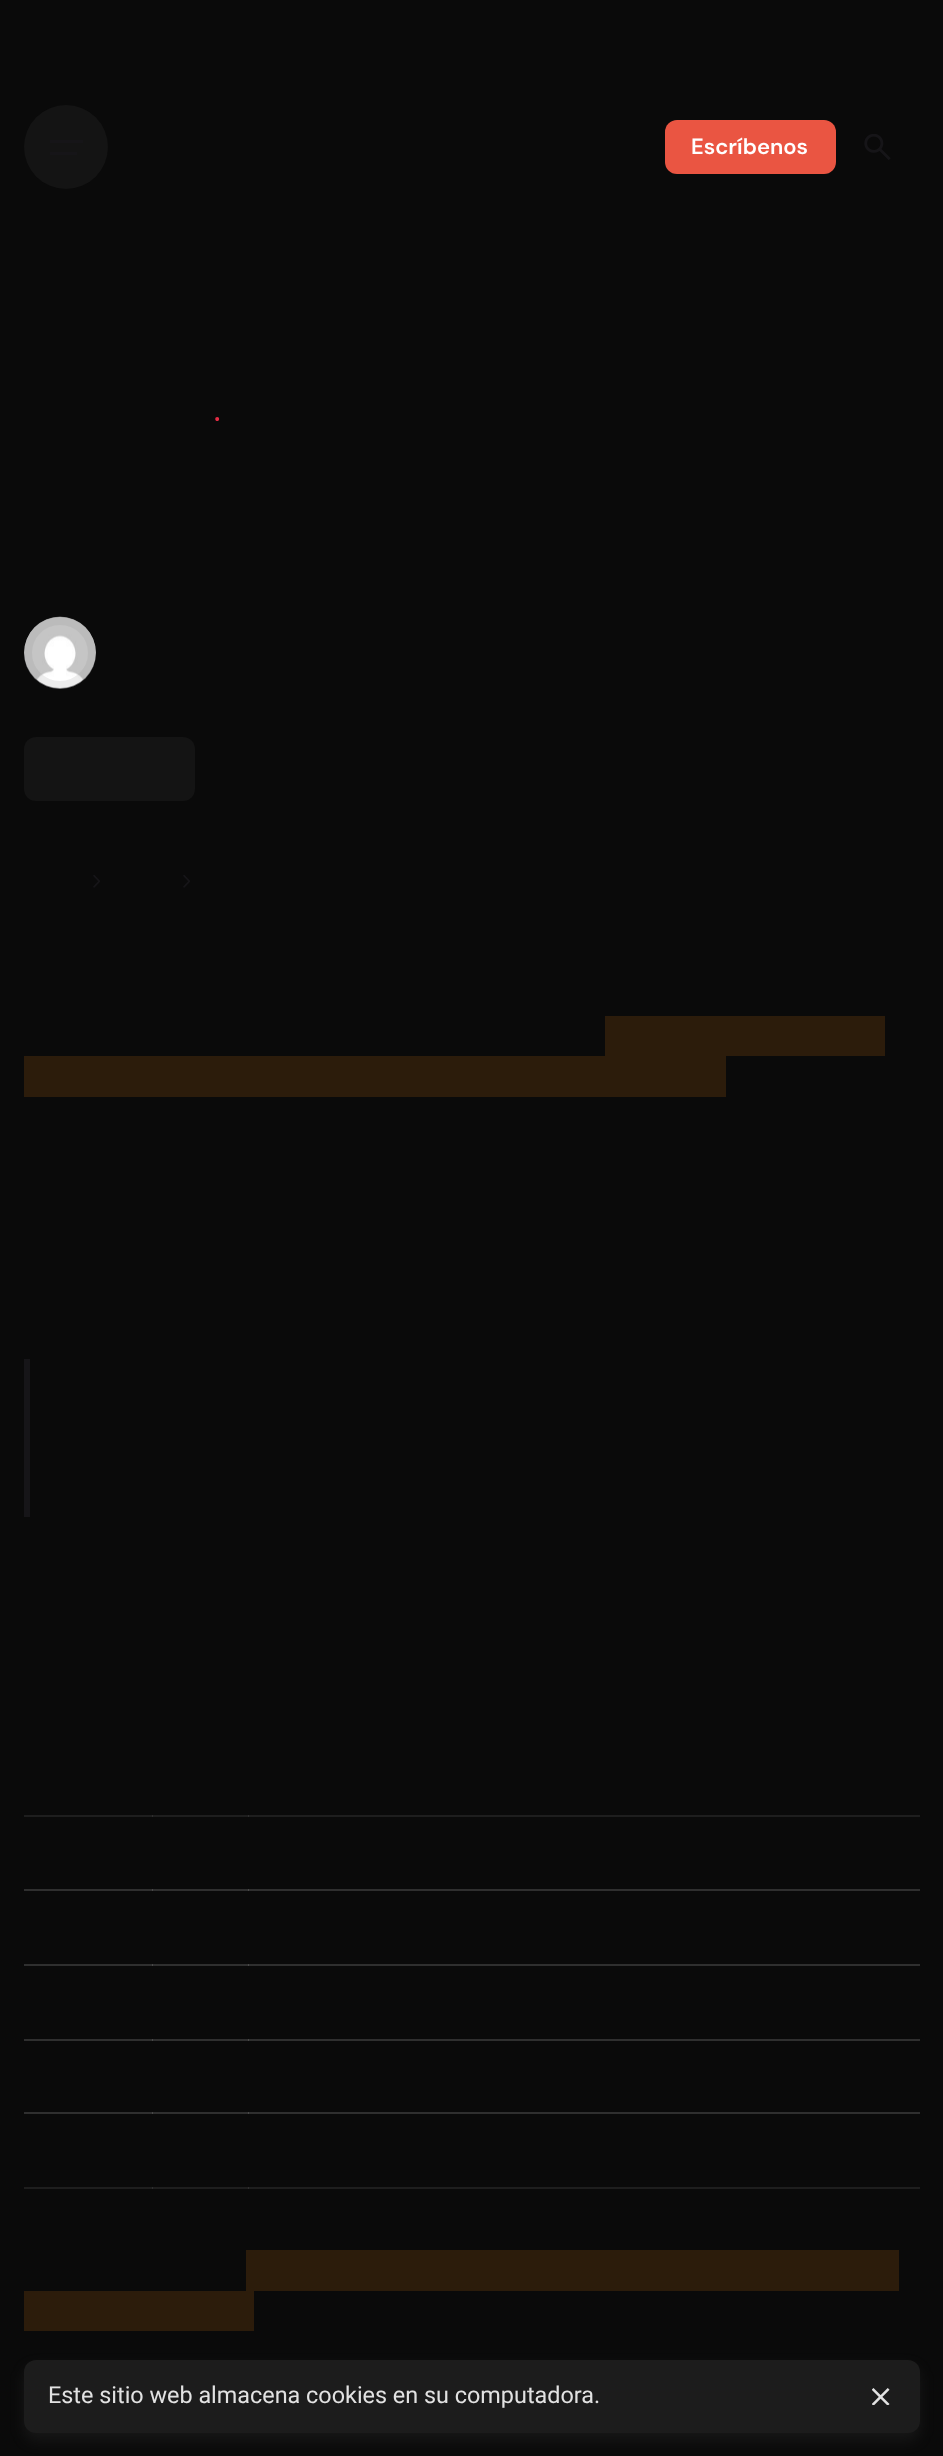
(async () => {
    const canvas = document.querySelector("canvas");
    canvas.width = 943;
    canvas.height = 2456;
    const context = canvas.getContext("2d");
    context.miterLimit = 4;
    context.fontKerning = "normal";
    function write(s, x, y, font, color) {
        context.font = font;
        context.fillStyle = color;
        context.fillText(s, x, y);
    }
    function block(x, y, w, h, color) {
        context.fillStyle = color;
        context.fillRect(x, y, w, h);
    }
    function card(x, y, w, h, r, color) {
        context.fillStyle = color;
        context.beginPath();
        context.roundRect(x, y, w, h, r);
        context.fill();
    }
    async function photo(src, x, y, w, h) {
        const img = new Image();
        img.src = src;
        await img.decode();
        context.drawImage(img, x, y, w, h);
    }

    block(0, 0, 943, 2456, "rgb(10, 10, 10)");
    context.fillStyle = "rgb(20, 20, 20)";
    context.beginPath();
    context.arc(66, 147, 42, 0, Math.PI * 2);
    context.fill();
    block(50, 140, 33, 3, "rgb(22, 21, 24)");
    block(50, 152, 27, 3, "rgb(22, 21, 24)");
    card(665, 120, 171, 54, 12, "rgb(234, 85, 66)");
    write("Escríbenos", 691, 154, "600 22px DM Sans", "rgb(255, 255, 255)");
    await photo("media/1.png", 864, 134, 27, 26);
    block(24, 1815, 896, 2, "rgb(30, 30, 30)");
    block(152, 1815, 1, 2, "rgb(47, 47, 47)");
    block(24, 1889, 896, 2, "rgb(47, 47, 47)");
    block(152, 1889, 1, 2, "rgb(73, 73, 73)");
    block(24, 1964, 896, 2, "rgb(47, 47, 47)");
    block(152, 1964, 1, 2, "rgb(73, 73, 73)");
    block(24, 2039, 896, 2, "rgb(47, 47, 47)");
    block(152, 2039, 1, 2, "rgb(73, 73, 73)");
    block(24, 2187, 896, 2, "rgb(30, 30, 30)");
    block(24, 2112, 896, 2, "rgb(47, 47, 47)");
    block(152, 2187, 1, 2, "rgb(47, 47, 47)");
    block(152, 2112, 1, 2, "rgb(73, 73, 73)");
    write("•", 214, 426, "19px Roboto", "rgb(228, 44, 68)");
    context.fillStyle = "rgb(60, 60, 61)";
    context.beginPath();
    context.arc(60, 653, 36, 0, Math.PI * 2);
    context.fill();
    context.fillStyle = "rgba(136, 136, 137, 0.4)";
    context.beginPath();
    context.arc(60, 653, 36, 0, Math.PI * 2);
    context.fill();
    await photo("media/2.png", 24, 616, 72, 73);
    context.beginPath();
    context.arc(60, 653, 32, 0, Math.PI * 2);
    context.strokeStyle = "rgba(136, 136, 137, 0.15)";
    context.lineWidth = 8;
    context.stroke();
    card(24, 737, 171, 64, 12, "rgb(20, 20, 20)");
    await photo("media/3.png", 93, 875, 7, 13);
    await photo("media/3.png", 183, 875, 7, 13);
    block(605, 1016, 280, 40, "rgb(44, 28, 11)");
    block(24, 1056, 702, 41, "rgb(44, 28, 11)");
    block(24, 1359, 6, 158, "rgb(22, 21, 24)");
    block(248, 1815, 1, 2, "rgb(47, 47, 47)");
    block(248, 1889, 1, 2, "rgb(73, 73, 73)");
    block(248, 1964, 1, 2, "rgb(73, 73, 73)");
    block(248, 2039, 1, 2, "rgb(73, 73, 73)");
    block(248, 2112, 1, 2, "rgb(73, 73, 73)");
    block(248, 2187, 1, 2, "rgb(47, 47, 47)");
    block(246, 2250, 653, 41, "rgb(44, 28, 11)");
    block(24, 2291, 230, 40, "rgb(44, 28, 11)");
    context.fillStyle = "rgba(136, 136, 137, 0.1)";
    context.filter = "blur(7.5px)";
    context.beginPath();
    context.roundRect(24, 2367, 896, 74, 12);
    context.fill();
    context.filter = "none";
    card(24, 2360, 896, 73, 12, "rgb(28, 28, 28)");
    write("Este sitio web almacena cookies en su computadora.", 48, 2403, "23.4px Roboto", "rgb(226, 226, 226)");
    await photo("media/4.png", 872, 2388, 18, 17);
})();
